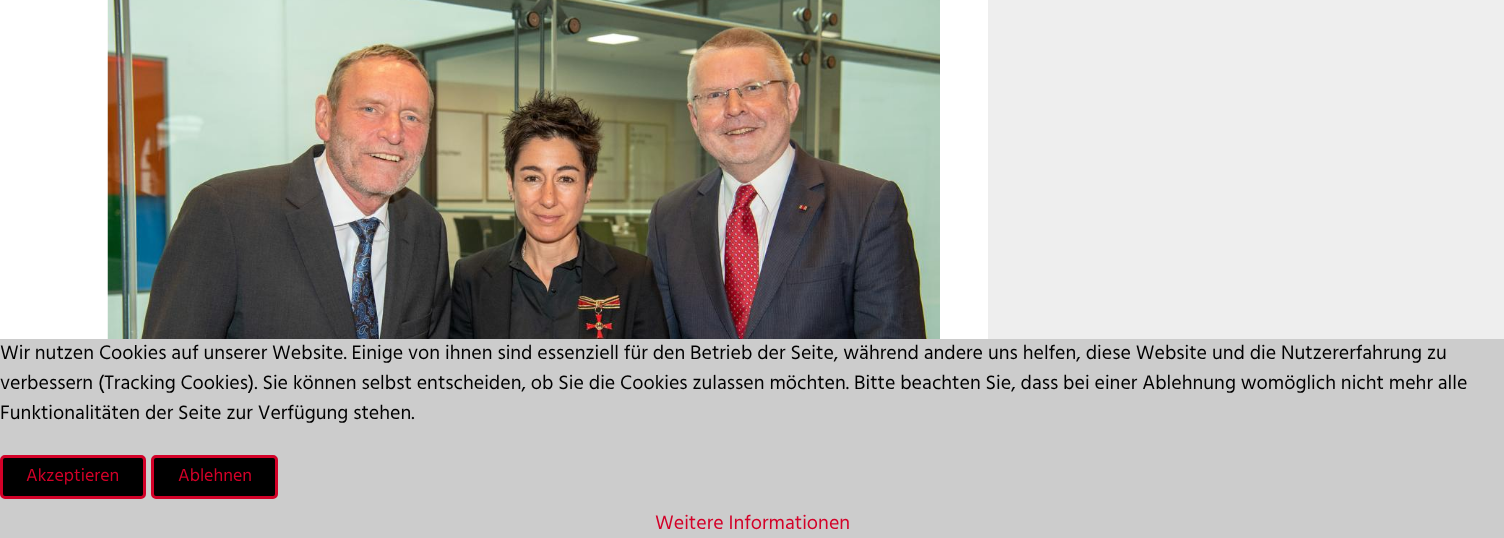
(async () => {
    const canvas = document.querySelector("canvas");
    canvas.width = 1504;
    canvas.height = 538;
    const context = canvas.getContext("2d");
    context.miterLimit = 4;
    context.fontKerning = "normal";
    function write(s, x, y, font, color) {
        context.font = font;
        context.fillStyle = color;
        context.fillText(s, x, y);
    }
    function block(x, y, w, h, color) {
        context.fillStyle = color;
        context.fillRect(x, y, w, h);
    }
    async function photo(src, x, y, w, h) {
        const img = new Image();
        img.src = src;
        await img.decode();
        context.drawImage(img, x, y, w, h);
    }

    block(0, 0, 1504, 538, "rgb(255, 255, 255)");
    await photo("media/1.png", 107, 0, 833, 339);
    block(988, 0, 516, 339, "rgb(238, 238, 238)");
    block(0, 339, 1504, 199, "rgb(204, 204, 204)");
    write("Wir nutzen Cookies auf unserer Website. Einige von ihnen sind essenziell für den Betrieb der Seite, während andere uns helfen, diese Website und die Nutzererfahrung zu", 0, 359, "20px Hind", "rgb(0, 0, 0)");
    write("verbessern (Tracking Cookies). Sie können selbst entscheiden, ob Sie die Cookies zulassen möchten. Bitte beachten Sie, dass bei einer Ablehnung womöglich nicht mehr alle", 0, 389, "20px Hind", "rgb(0, 0, 0)");
    write("Funktionalitäten der Seite zur Verfügung stehen.", 0, 419, "20px Hind", "rgb(0, 0, 0)");
    context.beginPath();
    context.roundRect(1.5, 456.5, 143, 41, 3.5);
    context.fill();
    context.strokeStyle = "rgb(211, 1, 40)";
    context.lineWidth = 3;
    context.stroke();
    write("Akzeptieren", 26, 481, "18px Hind", "rgb(211, 1, 40)");
    context.fillStyle = "rgb(0, 0, 0)";
    context.beginPath();
    context.roundRect(152.5, 456.5, 124, 41, 3.5);
    context.fill();
    context.stroke();
    write("Ablehnen", 178, 481, "18px Hind", "rgb(211, 1, 40)");
    write("Weitere Informationen", 655, 529, "20px Hind", "rgb(211, 1, 40)");
})();
